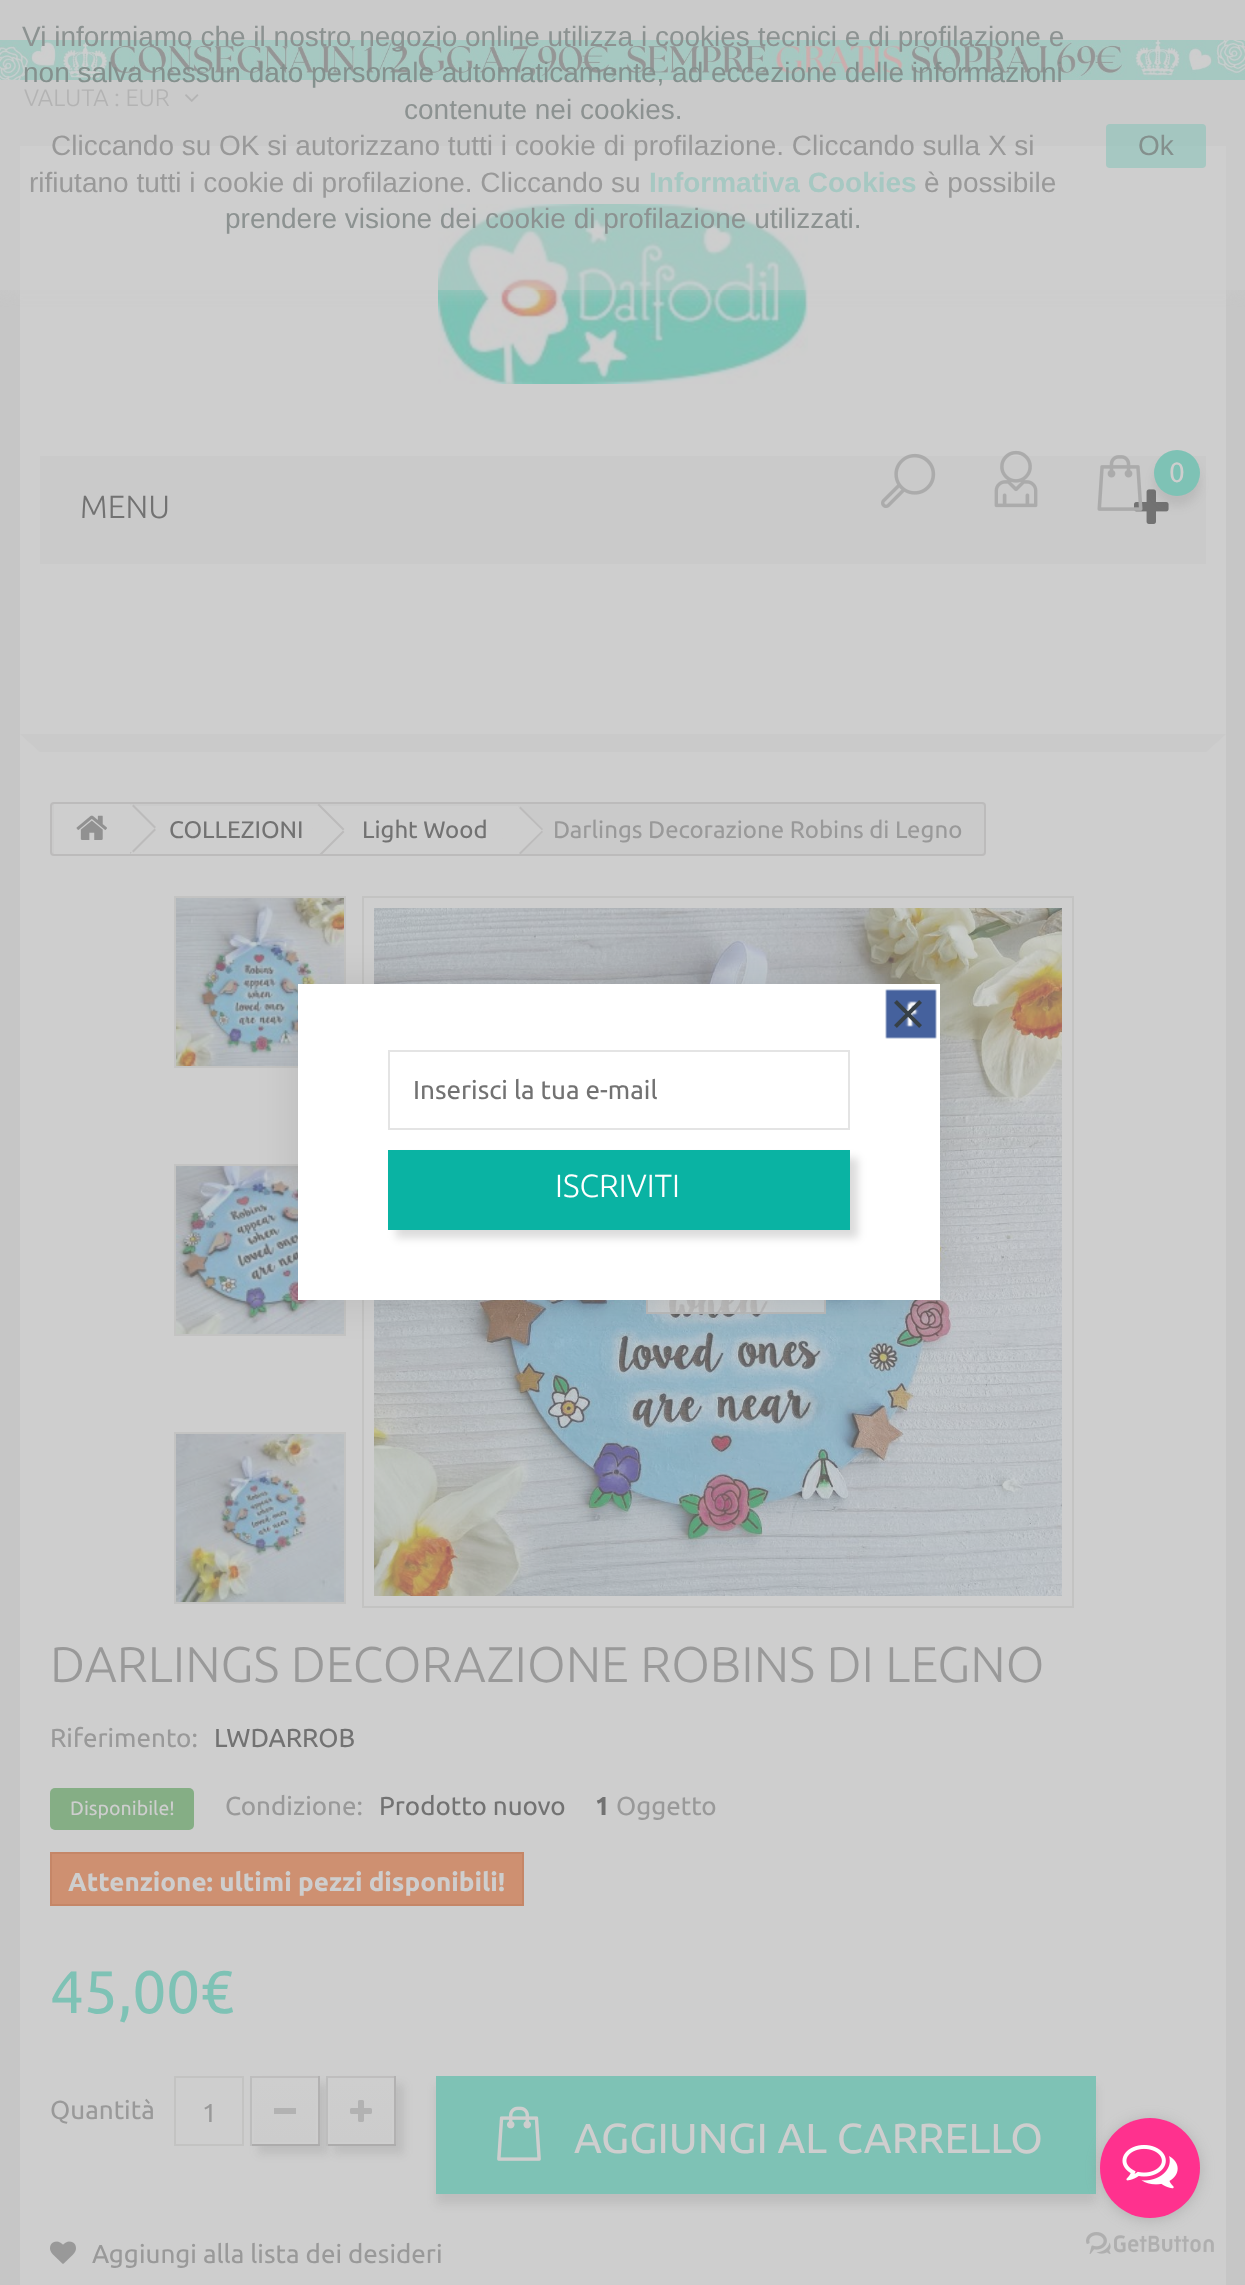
(async () => {
    const canvas = document.querySelector("canvas");
    canvas.width = 1245;
    canvas.height = 2285;
    const context = canvas.getContext("2d");
    context.miterLimit = 4;
    context.fontKerning = "normal";
    function write(s, x, y, font, color) {
        context.font = font;
        context.fillStyle = color;
        context.fillText(s, x, y);
    }
    function block(x, y, w, h, color) {
        context.fillStyle = color;
        context.fillRect(x, y, w, h);
    }
    function card(x, y, w, h, r, color) {
        context.fillStyle = color;
        context.beginPath();
        context.roundRect(x, y, w, h, r);
        context.fill();
    }
    async function photo(src, x, y, w, h) {
        const img = new Image();
        img.src = src;
        await img.decode();
        context.drawImage(img, x, y, w, h);
    }
    let gradient;

    block(0, 0, 1245, 2285, "rgb(198, 198, 198)");
    block(20, 146, 1206, 2139, "rgb(206, 206, 206)");
    await photo("media/1.png", 438, 204, 370, 180);
    await photo("media/14.png", 0, 40, 1245, 40);
    await photo("media/15.png", 185, 94, 14, 8);
    context.save();
    context.beginPath();
    context.rect(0, 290, 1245, 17);
    context.clip();
    context.fillStyle = "rgba(206, 206, 206, 0.5)";
    context.filter = "blur(10px)";
    context.beginPath();
    context.rect(0, 0, 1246, 290);
    context.fill();
    context.filter = "none";
    context.restore();
    write("VALUTA : EUR", 24, 106, "300 24px Ubuntu", "rgb(153, 153, 153)");
    block(0, 0, 1245, 290, "rgba(206, 206, 206, 0.5)");
    write("Vi informiamo che il nostro negozio online utilizza i cookies tecnici e di profilazione e", 22, 46, "28px Liberation Sans", "rgb(140, 146, 145)");
    write("non salva nessun dato personale automaticamente, ad eccezione delle informazioni", 23, 82, "28px Liberation Sans", "rgb(132, 144, 141)");
    write("contenute nei cookies.", 404, 119, "28px Liberation Sans", "rgb(140, 146, 145)");
    write("Cliccando su OK si autorizzano tutti i cookie di profilazione. Cliccando sulla X si", 51, 155, "28px Liberation Sans", "rgb(153, 153, 153)");
    write("rifiutano tutti i cookie di profilazione. Cliccando su", 29, 192, "28px Liberation Sans", "rgb(153, 153, 153)");
    write("Informativa Cookies", 649, 192, "bold 28px Liberation Sans", "rgb(166, 200, 194)");
    write("è possibile", 924, 192, "28px Liberation Sans", "rgb(153, 153, 153)");
    write("prendere visione dei cookie di profilazione utilizzati.", 225, 228, "28px Liberation Sans", "rgb(140, 146, 145)");
    card(1106, 124, 100, 44, 4, "rgba(126, 194, 181, 0.5)");
    write("Ok", 1138, 155, "28px Liberation Sans", "rgb(132, 144, 141)");
    block(40, 456, 1166, 108, "rgb(202, 202, 202)");
    await photo("media/2.png", 881, 453, 55, 55);
    await photo("media/3.png", 994, 450, 44, 58);
    await photo("media/5.png", 1134, 489, 35, 35);
    await photo("media/4.png", 1097, 455, 46, 56);
    context.fillStyle = "rgba(91, 91, 91, 0.14)";
    context.filter = "blur(5px)";
    context.beginPath();
    context.roundRect(1154, 460, 46, 46, 23);
    context.fill();
    context.filter = "none";
    context.fillStyle = "rgb(126, 194, 181)";
    context.beginPath();
    context.arc(1177, 473, 23, 0, Math.PI * 2);
    context.fill();
    write("0", 1169, 482, "28px Ubuntu", "rgb(206, 206, 206)");
    write("MENU", 80, 518, "300 32px Ubuntu", "rgb(114, 114, 114)");
    context.fillStyle = "rgb(202, 202, 202)";
    context.beginPath();
    context.moveTo(20, 734);
    context.lineTo(1226, 734);
    context.lineTo(1206, 752);
    context.lineTo(40, 752);
    context.closePath();
    context.fill();
    context.beginPath();
    context.roundRect(51, 803, 934, 52, 3);
    context.fill();
    context.strokeStyle = "rgb(188, 187, 187)";
    context.lineWidth = 2;
    context.stroke();
    block(130, 806, 188, 48, "rgb(206, 206, 206)");
    context.fillStyle = "rgb(188, 187, 187)";
    context.beginPath();
    context.moveTo(150.5, 830.5);
    context.lineTo(152, 832);
    context.lineTo(130, 854);
    context.lineTo(127, 854);
    context.closePath();
    context.fill();
    block(54, 804, 76, 50, "rgb(206, 206, 206)");
    await photo("media/6.png", 76, 815, 31, 25);
    context.beginPath();
    context.moveTo(135, 806);
    context.lineTo(155, 826);
    context.bezierCurveTo(156, 827, 156, 830, 155, 831);
    context.lineTo(135, 851);
    context.bezierCurveTo(133, 853, 131, 853, 129, 851);
    context.lineTo(109, 831);
    context.bezierCurveTo(108, 830, 108, 827, 109, 826);
    context.lineTo(129, 806);
    context.bezierCurveTo(131, 804, 133, 804, 135, 806);
    context.closePath();
    context.fill();
    context.fillStyle = "rgb(188, 187, 187)";
    context.beginPath();
    context.moveTo(133.5, 804.5);
    context.lineTo(156, 827);
    context.lineTo(154.5, 828.5);
    context.lineTo(132, 806);
    context.closePath();
    context.fill();
    context.beginPath();
    context.moveTo(154.5, 828.5);
    context.lineTo(156, 830);
    context.lineTo(133.5, 852.5);
    context.lineTo(132, 851);
    context.closePath();
    context.fill();
    write("COLLEZIONI", 169, 838, "24px Ubuntu", "rgb(114, 114, 114)");
    context.fillStyle = "rgb(206, 206, 206)";
    context.beginPath();
    context.moveTo(338, 808);
    context.lineTo(355, 825);
    context.bezierCurveTo(357, 827, 362, 830, 358, 833);
    context.lineTo(337, 854);
    context.lineTo(334, 854);
    context.lineTo(313, 833);
    context.bezierCurveTo(311, 832, 311, 829, 313, 828);
    context.lineTo(333, 808);
    context.bezierCurveTo(334, 806, 337, 806, 338, 808);
    context.closePath();
    context.fill();
    block(318, 806, 200, 48, "rgb(206, 206, 206)");
    context.fillStyle = "rgb(188, 187, 187)";
    context.beginPath();
    context.moveTo(319, 803.5);
    context.lineTo(344.5, 829);
    context.lineTo(343, 830.5);
    context.lineTo(317.5, 805);
    context.closePath();
    context.fill();
    context.beginPath();
    context.moveTo(343, 830.5);
    context.lineTo(344.5, 832);
    context.lineTo(322.5, 854);
    context.lineTo(319.5, 854);
    context.closePath();
    context.fill();
    write("Light Wood", 362, 838, "24px Ubuntu", "rgb(114, 114, 114)");
    context.fillStyle = "rgb(206, 206, 206)";
    context.beginPath();
    context.moveTo(522, 808);
    context.lineTo(539, 825);
    context.bezierCurveTo(546, 832, 543, 832, 535, 840);
    context.lineTo(521, 854);
    context.lineTo(517, 854);
    context.lineTo(497, 833);
    context.bezierCurveTo(495, 831, 495, 830, 497, 828);
    context.lineTo(510, 815);
    context.bezierCurveTo(511, 813, 516, 806, 520, 807);
    context.closePath();
    context.fill();
    context.fillStyle = "rgb(188, 187, 187)";
    context.beginPath();
    context.moveTo(520.5, 806.5);
    context.lineTo(543, 829);
    context.lineTo(542, 830.5);
    context.lineTo(519, 808);
    context.closePath();
    context.fill();
    context.beginPath();
    context.moveTo(542, 830.5);
    context.lineTo(543, 832);
    context.lineTo(520.5, 854.5);
    context.lineTo(519, 853);
    context.closePath();
    context.fill();
    write("Darlings Decorazione Robins di Legno", 553, 838, "24px Ubuntu", "rgb(153, 153, 153)");
    context.strokeStyle = "rgb(195, 195, 194)";
    context.strokeRect(175, 897, 170, 170);
    await photo("media/7.png", 176, 898, 168, 168);
    context.strokeRect(175, 1165, 170, 170);
    await photo("media/8.png", 176, 1166, 168, 168);
    context.strokeRect(175, 1433, 170, 170);
    await photo("media/9.png", 176, 1434, 168, 168);
    context.strokeRect(363, 897, 710, 710);
    await photo("media/10.png", 374, 908, 688, 688);
    block(646, 1300, 180, 14, "rgba(206, 206, 206, 0.8)");
    context.strokeStyle = "rgba(183, 183, 183, 0.8)";
    context.strokeRect(647, 1229, 178, 84);
    write("DARLINGS DECORAZIONE ROBINS DI LEGNO", 50, 1682, "300 50px Ubuntu", "rgb(153, 153, 153)");
    write("Riferimento:", 50, 1747, "26px Ubuntu", "rgb(153, 153, 153)");
    write("LWDARROB", 214, 1747, "26px Ubuntu", "rgb(114, 114, 114)");
    card(50, 1788, 144, 42, 5, "rgb(133, 174, 133)");
    write("Disponibile!", 70, 1815, "19.5px Ubuntu", "rgb(206, 206, 206)");
    write("Condizione:", 225, 1815, "26px Ubuntu", "rgb(153, 153, 153)");
    write("Prodotto nuovo", 379, 1815, "26px Ubuntu", "rgb(114, 114, 114)");
    write("1", 595, 1815, "bold 26px Ubuntu", "rgb(114, 114, 114)");
    write("Oggetto", 616, 1815, "26px Ubuntu", "rgb(153, 153, 153)");
    context.fillStyle = "rgb(206, 144, 113)";
    context.beginPath();
    context.rect(51, 1853, 472, 52);
    context.fill();
    context.strokeStyle = "rgb(197, 134, 103)";
    context.stroke();
    write("Attenzione: ultimi pezzi disponibili!", 68, 1891, "bold 26px Ubuntu", "rgb(206, 206, 206)");
    write("45,00€", 50, 2013, "60px Ubuntu", "rgb(126, 194, 181)");
    write("Quantità", 50, 2119, "26px Ubuntu", "rgb(153, 153, 153)");
    context.strokeStyle = "rgb(195, 195, 194)";
    context.strokeRect(175, 2077, 68, 68);
    write("1", 202, 2122, "26px Ubuntu", "rgb(153, 153, 153)");
    context.fillStyle = "rgba(91, 91, 91, 0.14)";
    context.filter = "blur(4px)";
    context.beginPath();
    context.rect(258, 2084, 70, 70);
    context.fill();
    context.filter = "none";
    block(250, 2076, 70, 2, "rgb(191, 190, 190)");
    block(318, 2076, 2, 70, "rgb(178, 177, 177)");
    block(250, 2144, 70, 2, "rgb(173, 172, 172)");
    block(250, 2076, 2, 70, "rgb(189, 189, 189)");
    gradient = context.createLinearGradient(285, 2080, 285, 2142);
    gradient.addColorStop(0, "rgb(206, 206, 206)");
    gradient.addColorStop(1, "rgb(204, 204, 204)");
    context.fillStyle = gradient;
    context.fillRect(254, 2080, 62, 62);
    context.strokeStyle = "rgb(206, 206, 206)";
    context.strokeRect(253, 2079, 64, 64);
    block(274, 2108, 22, 6, "rgb(178, 178, 178)");
    context.fillStyle = "rgba(91, 91, 91, 0.14)";
    context.filter = "blur(4px)";
    context.beginPath();
    context.rect(334, 2084, 70, 70);
    context.fill();
    context.filter = "none";
    block(326, 2076, 70, 2, "rgb(191, 190, 190)");
    block(394, 2076, 2, 70, "rgb(178, 177, 177)");
    block(326, 2144, 70, 2, "rgb(173, 172, 172)");
    block(326, 2076, 2, 70, "rgb(189, 189, 189)");
    gradient = context.createLinearGradient(361, 2080, 361, 2142);
    gradient.addColorStop(0, "rgb(206, 206, 206)");
    gradient.addColorStop(1, "rgb(204, 204, 204)");
    context.fillStyle = gradient;
    context.fillRect(330, 2080, 62, 62);
    context.strokeRect(329, 2079, 64, 64);
    await photo("media/11.png", 350, 2100, 22, 22);
    context.fillStyle = "rgba(91, 91, 91, 0.14)";
    context.filter = "blur(5px)";
    context.beginPath();
    context.rect(436, 2086, 660, 118);
    context.fill();
    context.filter = "none";
    block(436, 2076, 660, 118, "rgb(126, 194, 181)");
    await photo("media/12.png", 497, 2106, 44, 55);
    write("AGGIUNGI AL CARRELLO", 574, 2153, "42px Ubuntu", "rgb(206, 206, 206)");
    await photo("media/13.png", 50, 2241, 26, 23);
    write("Aggiungi alla lista dei desideri", 92, 2263, "26px Ubuntu", "rgb(153, 153, 153)");
    context.fillStyle = "rgba(0, 0, 0, 0.1)";
    context.filter = "blur(21px)";
    context.beginPath();
    context.rect(298, 984, 642, 316);
    context.fill();
    context.filter = "none";
    block(298, 984, 642, 316, "rgb(255, 255, 255)");
    await photo("media/16.png", 885, 989, 52, 50);
    await photo("media/17.png", 894, 1000, 28, 28);
    context.strokeStyle = "rgb(228, 228, 228)";
    context.strokeRect(389, 1051, 460, 78);
    write("Inserisci la tua e-mail", 413, 1099, "26px Ubuntu", "rgb(114, 114, 114)");
    context.fillStyle = "rgba(0, 0, 0, 0.14)";
    context.filter = "blur(4px)";
    context.beginPath();
    context.rect(396, 1158, 462, 80);
    context.fill();
    context.filter = "none";
    block(388, 1150, 462, 80, "rgb(10, 179, 163)");
    write("ISCRIVITI", 555, 1197, "300 32px Ubuntu", "rgb(255, 255, 255)");
    await photo("media/19.png", 1086, 2232, 128, 22);
    context.fillStyle = "rgba(136, 136, 136, 0.4)";
    context.filter = "blur(7px)";
    context.beginPath();
    context.roundRect(1100, 2120, 100, 100, 50);
    context.fill();
    context.filter = "none";
    context.fillStyle = "rgb(255, 49, 142)";
    context.beginPath();
    context.arc(1150, 2168, 50, 0, Math.PI * 2);
    context.fill();
    await photo("media/18.png", 1122, 2145, 56, 44);
})();
